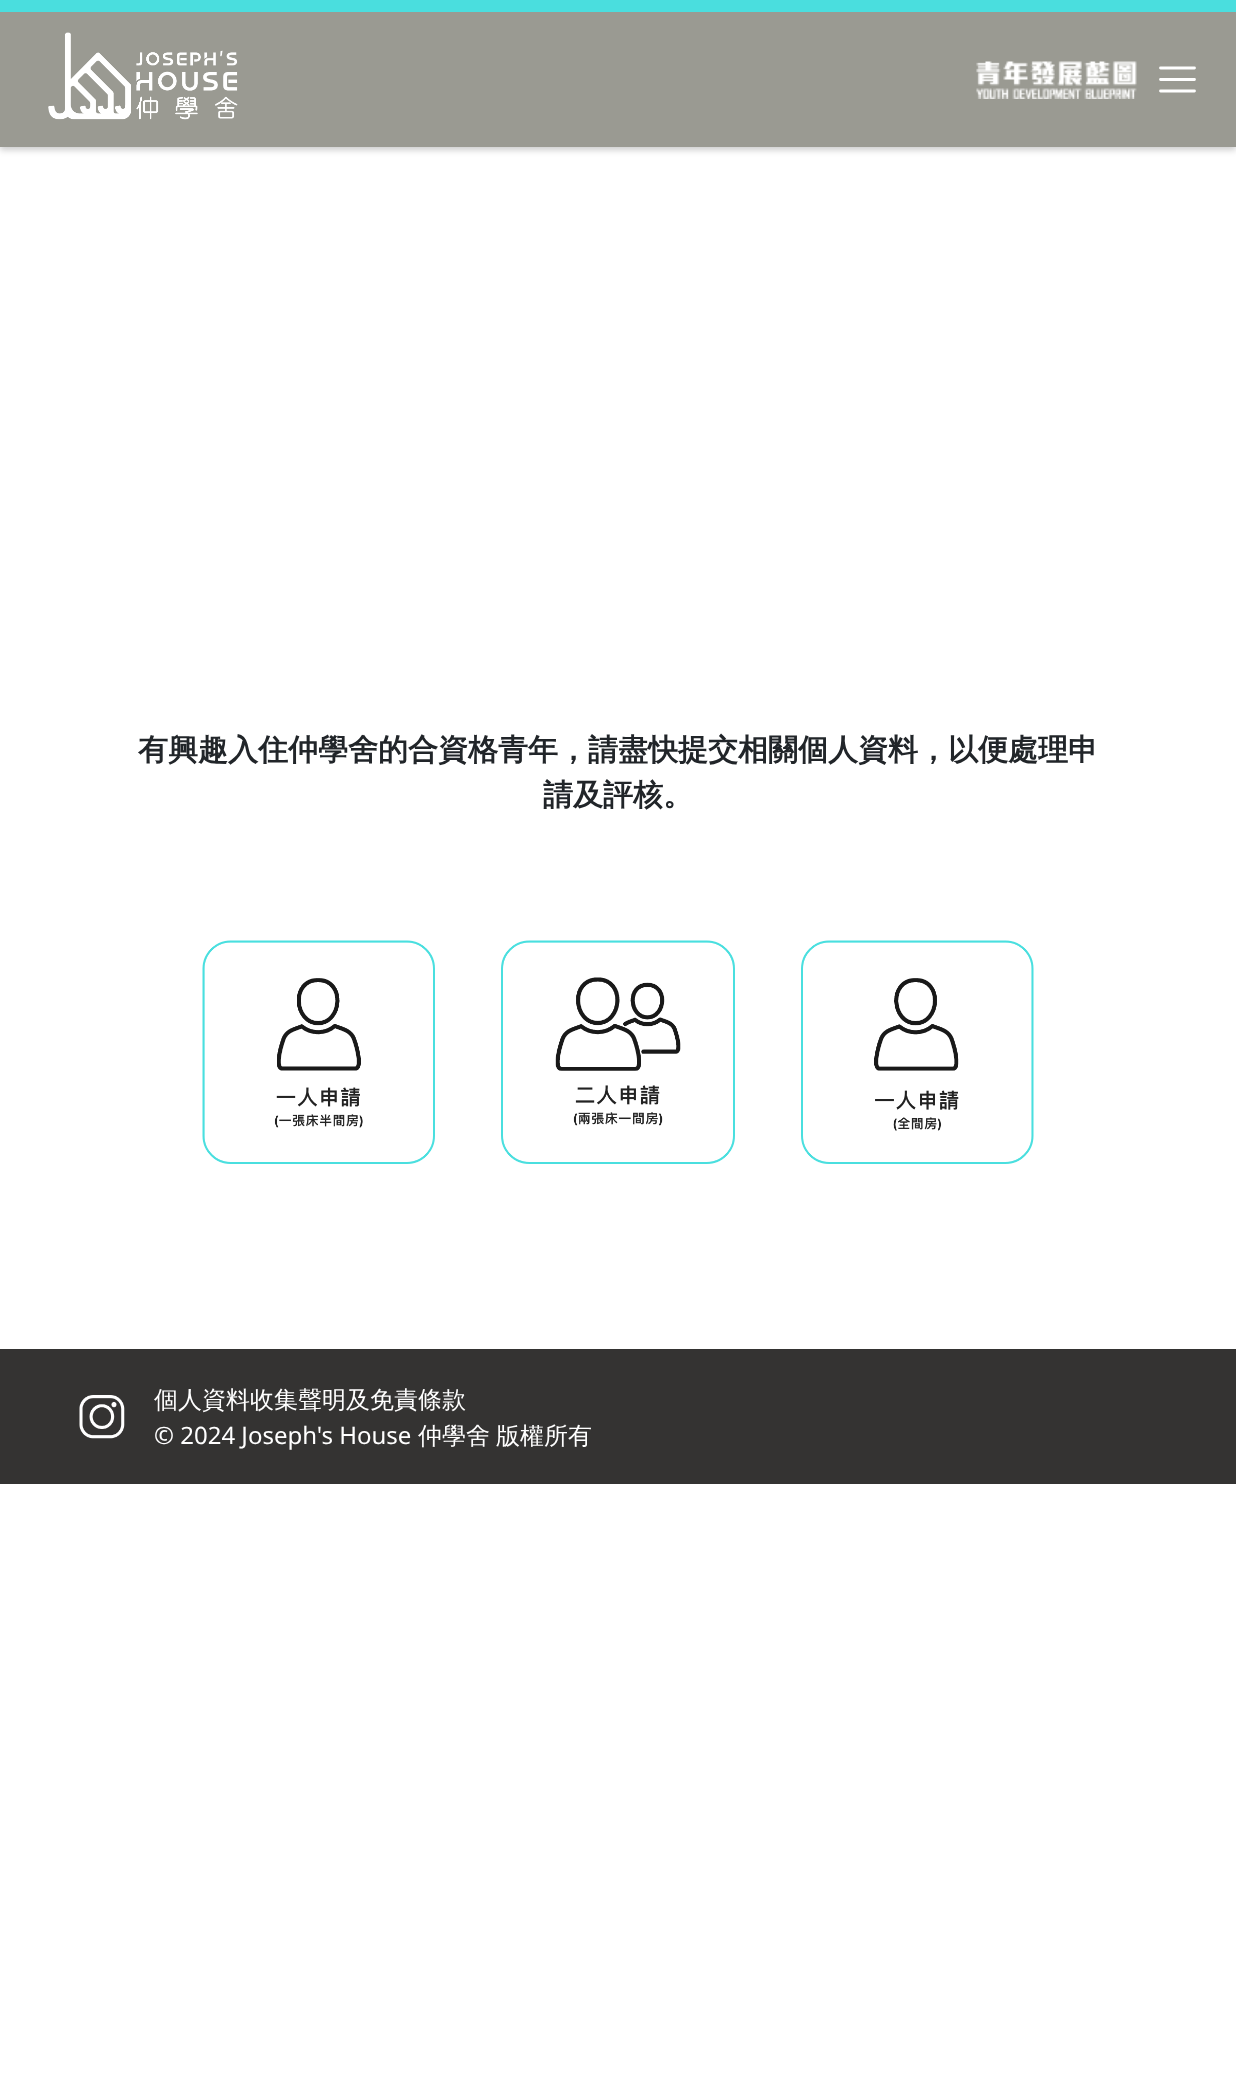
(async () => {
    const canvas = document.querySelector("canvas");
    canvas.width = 1236;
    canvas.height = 2075;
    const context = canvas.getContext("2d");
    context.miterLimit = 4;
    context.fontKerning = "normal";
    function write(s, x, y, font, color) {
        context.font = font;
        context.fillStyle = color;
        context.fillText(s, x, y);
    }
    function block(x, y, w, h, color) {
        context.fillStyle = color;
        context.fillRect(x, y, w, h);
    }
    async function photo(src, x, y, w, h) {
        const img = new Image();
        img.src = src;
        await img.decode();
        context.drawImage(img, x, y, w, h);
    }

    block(0, 0, 1236, 2075, "rgb(255, 255, 255)");
    context.fillStyle = "rgba(0, 0, 0, 0.2)";
    context.filter = "blur(3px)";
    context.beginPath();
    context.rect(0, 3, 1236, 147);
    context.fill();
    context.filter = "none";
    block(0, 12, 1236, 135, "rgb(154, 154, 146)");
    block(0, 0, 1236, 12, "rgb(74, 222, 222)");
    await photo("media/1.png", 48, 32, 190, 88);
    await photo("media/2.png", 976, 61, 161, 38);
    context.beginPath();
    context.moveTo(1160.5, 68);
    context.lineTo(1194.5, 68);
    context.moveTo(1160.5, 79.5);
    context.lineTo(1194.5, 79.5);
    context.moveTo(1160.5, 91);
    context.lineTo(1194.5, 91);
    context.strokeStyle = "rgb(255, 255, 255)";
    context.lineWidth = 2.8;
    context.lineCap = "round";
    context.stroke();
    write("有興趣入住仲學舍的合資格青年，請盡快提交相關個人資料，以便處理申", 138, 760, "bold 30px WenQuanYi Zen Hei", "rgb(33, 37, 41)");
    write("請及評核。", 543, 805, "bold 30px WenQuanYi Zen Hei", "rgb(33, 37, 41)");
    await photo("media/3.png", 202, 940, 233, 224);
    await photo("media/4.png", 501, 940, 234, 224);
    await photo("media/5.png", 801, 940, 233, 224);
    block(0, 1349, 1236, 135, "rgb(52, 51, 50)");
    await photo("media/6.png", 79, 1395, 46, 44);
    write("個人資料收集聲明及免責條款", 154, 1408, "500 24px WenQuanYi Zen Hei", "rgb(255, 255, 255)");
    write("© 2024 Joseph's House", 154, 1444, "24px Noto Sans", "rgb(255, 255, 255)");
    write("仲學舍", 418, 1444, "500 24px WenQuanYi Zen Hei", "rgb(255, 255, 255)");
    write("版權所有", 496, 1444, "500 24px WenQuanYi Zen Hei", "rgb(255, 255, 255)");
})();
